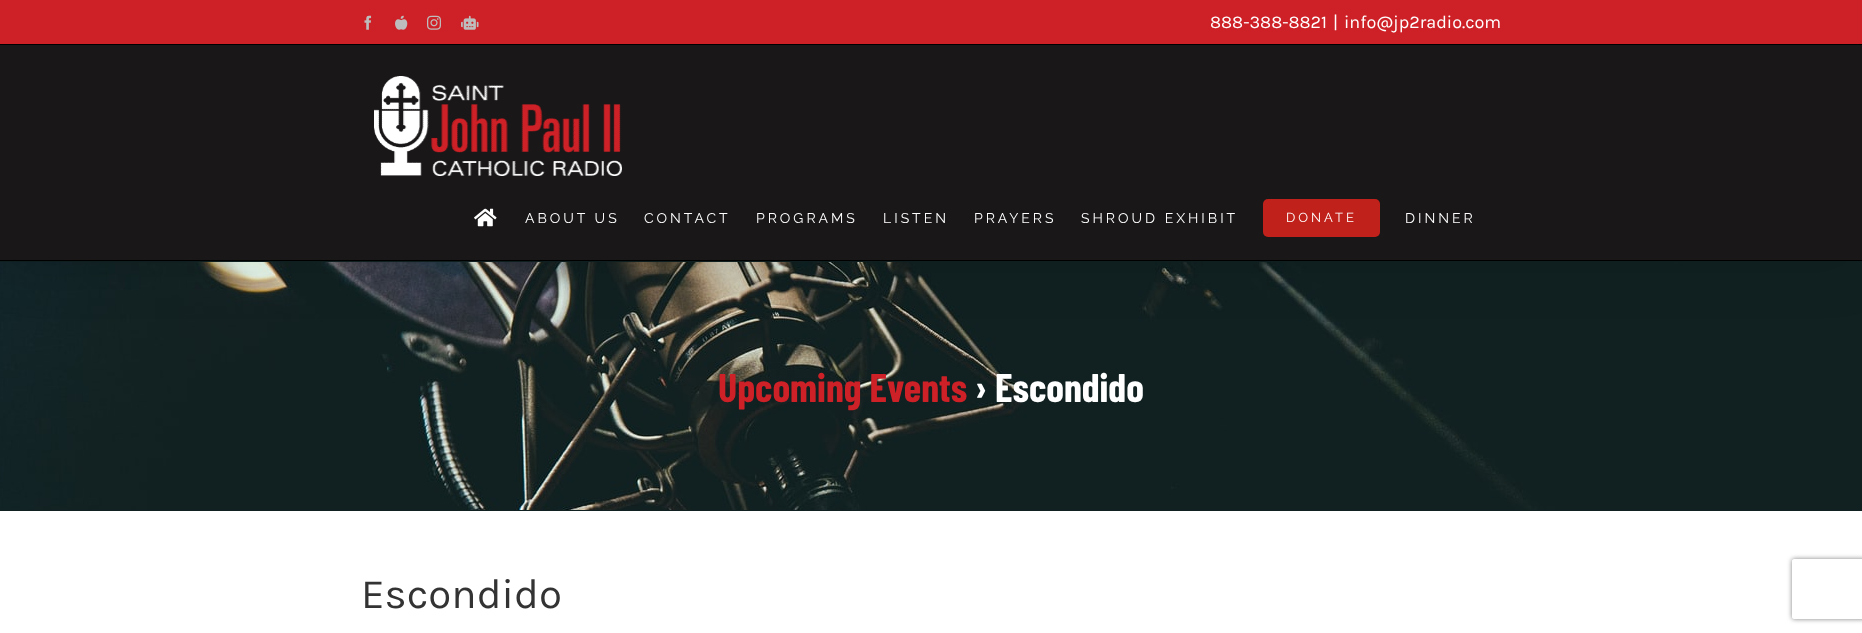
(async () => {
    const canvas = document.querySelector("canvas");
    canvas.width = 1862;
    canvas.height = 633;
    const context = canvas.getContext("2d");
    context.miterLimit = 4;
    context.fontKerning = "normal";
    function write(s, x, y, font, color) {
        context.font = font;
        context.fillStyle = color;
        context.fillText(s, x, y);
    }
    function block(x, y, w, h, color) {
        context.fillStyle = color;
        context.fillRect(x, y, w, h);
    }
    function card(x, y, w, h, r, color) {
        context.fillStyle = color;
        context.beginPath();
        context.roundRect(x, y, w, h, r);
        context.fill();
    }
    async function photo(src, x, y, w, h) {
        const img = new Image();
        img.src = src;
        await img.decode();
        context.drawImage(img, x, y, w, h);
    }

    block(0, 0, 1862, 633, "rgb(255, 255, 255)");
    await photo("media/7.png", 0, 262, 1862, 248);
    block(0, 261, 1862, 1, "rgb(17, 33, 33)");
    context.fillStyle = "rgba(0, 0, 0, 0.14)";
    context.filter = "blur(25px)";
    context.beginPath();
    context.rect(2, 12, 1858, 257);
    context.fill();
    context.filter = "none";
    block(0, 0, 1862, 44, "rgb(206, 33, 39)");
    block(0, 44, 1862, 1, "rgb(0, 0, 0)");
    await photo("media/1.png", 364, 15, 8, 15);
    await photo("media/2.png", 395, 15, 13, 15);
    await photo("media/3.png", 427, 15, 14, 15);
    await photo("media/4.png", 461, 15, 18, 15);
    write("888-388-8821", 1210, 28, "18px Karla", "rgb(255, 255, 255)");
    write("|", 1333, 28, "18px Karla", "rgb(255, 255, 255)");
    write("info@jp2radio.com", 1344, 28, "18px Karla", "rgb(255, 255, 255)");
    block(0, 45, 1862, 215, "rgb(25, 23, 23)");
    block(0, 260, 1862, 1, "rgb(0, 0, 0)");
    await photo("media/5.png", 374, 76, 248, 100);
    await photo("media/6.png", 474, 208, 23, 19);
    context.letterSpacing = "3px";
    write("ABOUT US", 525, 223, "100 14px Raleway", "rgb(255, 255, 255)");
    write("CONTACT", 644, 223, "100 14px Raleway", "rgb(255, 255, 255)");
    write("PROGRAMS", 756, 223, "100 14px Raleway", "rgb(255, 255, 255)");
    write("LISTEN", 883, 223, "100 14px Raleway", "rgb(255, 255, 255)");
    write("PRAYERS", 974, 223, "100 14px Raleway", "rgb(255, 255, 255)");
    write("SHROUD EXHIBIT", 1081, 223, "100 14px Raleway", "rgb(255, 255, 255)");
    card(1263, 199, 117, 38, 5, "rgb(193, 33, 27)");
    write("DONATE", 1286, 222, "100 13px Raleway", "rgb(255, 255, 255)");
    write("DINNER", 1405, 223, "100 14px Raleway", "rgb(255, 255, 255)");
    block(0, 510, 1862, 1, "rgb(17, 33, 33)");
    context.letterSpacing = "0px";
    write("Upcoming Events", 718, 402, "bold 40px Barlow Condensed", "rgb(206, 33, 39)");
    write("› Escondido", 975, 402, "bold 40px Barlow Condensed", "rgb(255, 255, 255)");
    write("Escondido", 361, 608, "42px Karla", "rgb(51, 51, 51)");
    context.save();
    context.beginPath();
    context.moveTo(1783, 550);
    context.lineTo(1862, 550);
    context.lineTo(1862, 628);
    context.lineTo(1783, 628);
    context.closePath();
    context.moveTo(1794, 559);
    context.lineTo(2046, 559);
    context.bezierCurveTo(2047, 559, 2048, 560, 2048, 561);
    context.lineTo(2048, 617);
    context.bezierCurveTo(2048, 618, 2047, 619, 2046, 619);
    context.lineTo(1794, 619);
    context.bezierCurveTo(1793, 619, 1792, 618, 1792, 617);
    context.lineTo(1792, 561);
    context.bezierCurveTo(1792, 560, 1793, 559, 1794, 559);
    context.closePath();
    context.clip("evenodd");
    context.fillStyle = "rgb(128, 128, 128)";
    context.filter = "blur(2.5px)";
    context.beginPath();
    context.roundRect(1792, 559, 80, 60, 2);
    context.fill();
    context.filter = "none";
    context.restore();
})();
